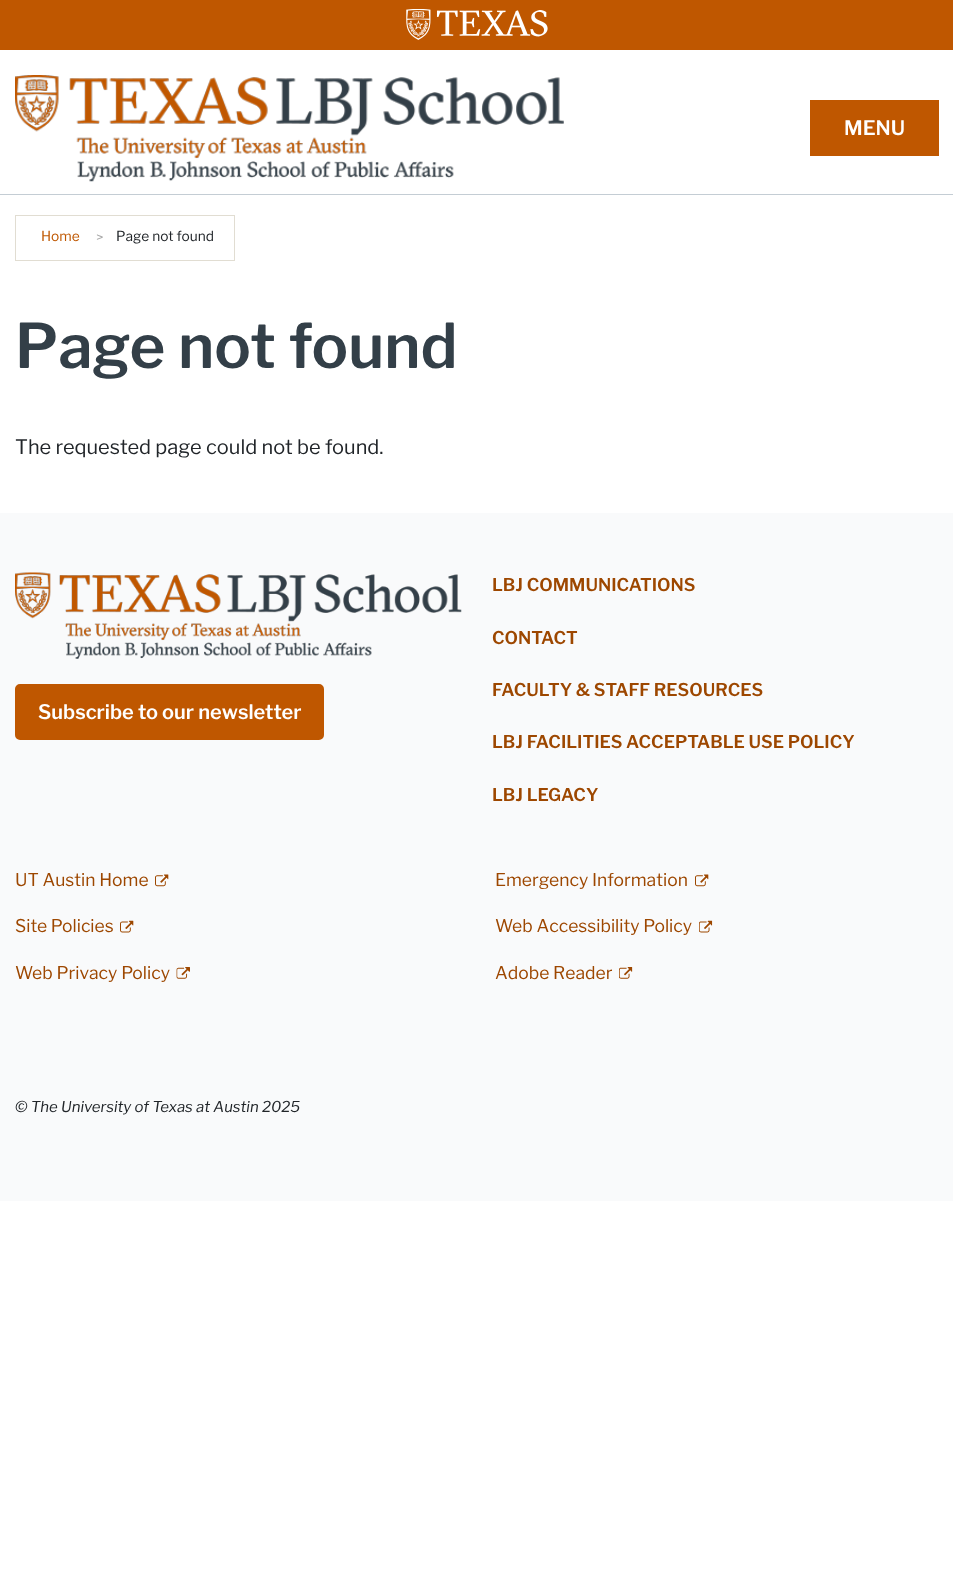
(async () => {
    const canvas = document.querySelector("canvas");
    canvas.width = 953;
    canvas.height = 1574;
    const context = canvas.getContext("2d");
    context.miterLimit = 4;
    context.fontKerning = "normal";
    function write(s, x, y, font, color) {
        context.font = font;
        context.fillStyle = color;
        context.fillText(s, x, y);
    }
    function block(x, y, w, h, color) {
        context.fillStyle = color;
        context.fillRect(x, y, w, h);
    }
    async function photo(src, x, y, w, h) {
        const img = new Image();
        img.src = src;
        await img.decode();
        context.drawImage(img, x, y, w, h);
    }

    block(0, 0, 953, 1574, "rgb(255, 255, 255)");
    block(0, 0, 953, 50, "rgb(191, 87, 0)");
    await photo("media/1.png", 406, 9, 142, 31);
    block(0, 194, 953, 1, "rgb(196, 205, 212)");
    await photo("media/2.png", 15, 75, 549, 107);
    block(810, 100, 129, 56, "rgb(191, 87, 0)");
    write("MENU", 844, 135, "600 20px Libre Franklin", "rgb(255, 255, 255)");
    block(15, 215, 220, 1, "rgb(225, 221, 210)");
    block(15, 260, 65, 1, "rgb(225, 221, 210)");
    block(15, 215, 1, 46, "rgb(225, 221, 210)");
    write("Home", 41, 241, "13.75px Libre Franklin", "rgb(191, 87, 0)");
    block(234, 215, 1, 46, "rgb(225, 221, 210)");
    block(80, 260, 155, 1, "rgb(225, 221, 210)");
    write(">", 96, 242, "13.75px Libre Franklin", "rgb(170, 170, 170)");
    write("Page not found", 116, 241, "13.75px Libre Franklin", "rgb(33, 37, 41)");
    write("Page not found", 15, 368, "600 61.25px Libre Franklin", "rgb(51, 63, 72)");
    write("The requested page could not be found.", 15, 454, "20px Libre Franklin", "rgb(33, 37, 41)");
    block(0, 513, 953, 688, "rgb(249, 250, 251)");
    await photo("media/3.png", 15, 572, 447, 87);
    context.fillStyle = "rgb(191, 87, 0)";
    context.beginPath();
    context.roundRect(16.5, 685.5, 306, 53, 3.5);
    context.fill();
    context.strokeStyle = "rgb(191, 87, 0)";
    context.lineWidth = 3;
    context.stroke();
    write("Subscribe to our newsletter", 38, 719, "600 20px Libre Franklin", "rgb(255, 255, 255)");
    write("LBJ COMMUNICATIONS", 492, 591, "600 17.5px Libre Franklin", "rgb(157, 71, 0)");
    write("CONTACT", 492, 644, "600 17.5px Libre Franklin", "rgb(157, 71, 0)");
    write("FACULTY & STAFF RESOURCES", 492, 696, "600 17.5px Libre Franklin", "rgb(157, 71, 0)");
    write("LBJ FACILITIES ACCEPTABLE USE POLICY", 492, 748, "600 17.5px Libre Franklin", "rgb(157, 71, 0)");
    write("LBJ LEGACY", 492, 801, "600 17.5px Libre Franklin", "rgb(157, 71, 0)");
    write("UT Austin Home", 15, 886, "17.5px Libre Franklin", "rgb(157, 71, 0)");
    await photo("media/4.png", 155, 874, 14, 13);
    write("Emergency Information", 495, 886, "17.5px Libre Franklin", "rgb(157, 71, 0)");
    await photo("media/4.png", 695, 874, 14, 13);
    write("Site Policies", 15, 932, "17.5px Libre Franklin", "rgb(157, 71, 0)");
    await photo("media/5.png", 120, 920, 14, 13);
    write("Web Accessibility Policy", 495, 932, "17.5px Libre Franklin", "rgb(157, 71, 0)");
    await photo("media/6.png", 699, 920, 14, 13);
    write("Web Privacy Policy", 15, 979, "17.5px Libre Franklin", "rgb(157, 71, 0)");
    await photo("media/7.png", 176, 967, 14, 12);
    write("Adobe Reader", 495, 979, "17.5px Libre Franklin", "rgb(157, 71, 0)");
    await photo("media/8.png", 619, 967, 14, 12);
    write("© The University of Texas at Austin 2025", 15, 1112, "italic 15px Libre Franklin", "rgb(33, 37, 41)");
})();
